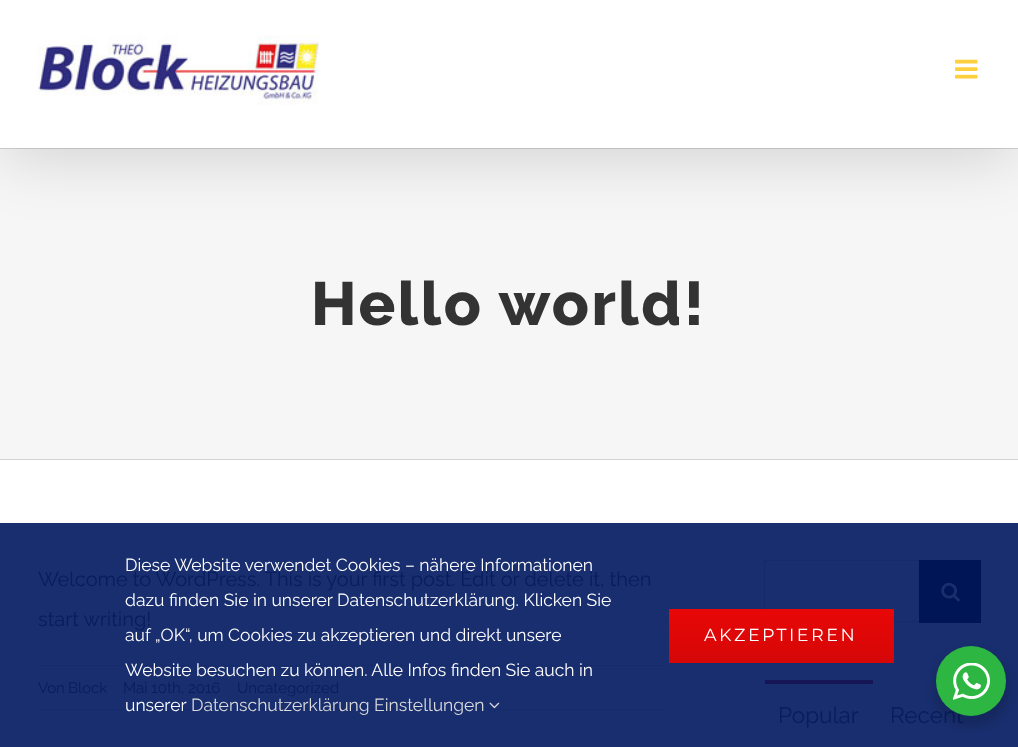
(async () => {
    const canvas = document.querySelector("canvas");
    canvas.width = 1018;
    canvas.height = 747;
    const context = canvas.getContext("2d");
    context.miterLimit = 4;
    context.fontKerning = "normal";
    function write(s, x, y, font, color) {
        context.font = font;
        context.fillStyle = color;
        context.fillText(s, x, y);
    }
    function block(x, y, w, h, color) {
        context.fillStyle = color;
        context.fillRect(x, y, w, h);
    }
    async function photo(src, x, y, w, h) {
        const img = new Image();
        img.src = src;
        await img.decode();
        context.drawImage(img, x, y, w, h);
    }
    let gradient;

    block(0, 0, 1018, 747, "rgb(255, 255, 255)");
    block(0, 523, 1018, 224, "rgb(25, 46, 110)");
    block(0, 149, 1018, 310, "rgb(246, 246, 246)");
    block(0, 148, 1018, 1, "rgb(210, 211, 212)");
    context.fillStyle = "rgba(0, 0, 0, 0.14)";
    context.filter = "blur(31px)";
    context.beginPath();
    context.rect(3, 15, 1013, 143);
    context.fill();
    context.filter = "none";
    block(0, 0, 1018, 148, "rgb(255, 255, 255)");
    await photo("media/1.png", 37, 35, 282, 70);
    await photo("media/2.png", 955, 59, 23, 20);
    block(0, 459, 1018, 1, "rgb(210, 211, 212)");
    context.letterSpacing = "2.5px";
    write("Hello world!", 311, 325, "800 61px Raleway", "rgb(51, 51, 51)");
    context.letterSpacing = "0px";
    write("Welcome to WordPress. This is your first post. Edit or delete it, then", 38, 586, "20px Raleway", "rgb(8, 29, 93)");
    write("start writing!", 38, 626, "20px Raleway", "rgb(8, 29, 93)");
    block(38, 665, 626, 1, "rgb(22, 43, 107)");
    block(38, 709, 626, 1, "rgb(22, 43, 107)");
    write("Von", 38, 693, "15px Raleway", "rgb(8, 29, 93)");
    write("Block", 68, 693, "15px Raleway", "rgb(8, 29, 93)");
    write("Mai 10th, 2016", 123, 693, "15px Raleway", "rgb(8, 29, 93)");
    write("Uncategorized", 237, 693, "15px Raleway", "rgb(8, 29, 93)");
    block(764, 560, 155, 1, "rgb(21, 42, 106)");
    block(894, 621, 25, 1, "rgb(21, 42, 106)");
    block(764, 560, 1, 49, "rgb(21, 42, 106)");
    block(919, 560, 62, 63, "rgb(0, 21, 85)");
    await photo("media/3.png", 941, 582, 19, 20);
    block(765, 680, 108, 4, "rgb(22, 21, 85)");
    write("Popular", 778, 723, "22.5px Raleway", "rgb(8, 29, 93)");
    write("Recent", 890, 723, "22.5px Raleway", "rgb(8, 29, 93)");
    write("Diese Website verwendet Cookies – nähere Informationen", 125, 571, "17.5px Raleway", "rgb(255, 255, 255)");
    write("dazu finden Sie in unserer Datenschutzerklärung. Klicken Sie", 125, 606, "17.5px Raleway", "rgb(255, 255, 255)");
    write("auf „OK“, um Cookies zu akzeptieren und direkt unsere", 125, 641, "17.5px Raleway", "rgb(255, 255, 255)");
    write("Website besuchen zu können. Alle Infos finden Sie auch in", 125, 676, "17.5px Raleway", "rgb(255, 255, 255)");
    write("unserer", 125, 711, "17.5px Raleway", "rgb(255, 255, 255)");
    write("Datenschutzerklärung Einstellungen", 191, 711, "17.5px Raleway", "rgb(219, 219, 219)");
    await photo("media/4.png", 489, 702, 11, 7);
    gradient = context.createLinearGradient(781, 609, 781, 663);
    gradient.addColorStop(0, "rgb(232, 7, 7)");
    gradient.addColorStop(1, "rgb(214, 7, 7)");
    context.fillStyle = gradient;
    context.fillRect(669, 609, 225, 54);
    context.letterSpacing = "2.5px";
    write("AKZEPTIEREN", 704, 641, "17.5px Montserrat", "rgb(255, 255, 255)");
    context.fillStyle = "rgba(0, 0, 0, 0.14)";
    context.filter = "blur(5px)";
    context.beginPath();
    context.roundRect(934, 651, 75, 75, 37.5);
    context.fill();
    context.filter = "none";
    context.fillStyle = "rgb(45, 183, 66)";
    context.beginPath();
    context.arc(971, 681, 35, 0, Math.PI * 2);
    context.fill();
    await photo("media/5.png", 953, 663, 37, 37);
})();
